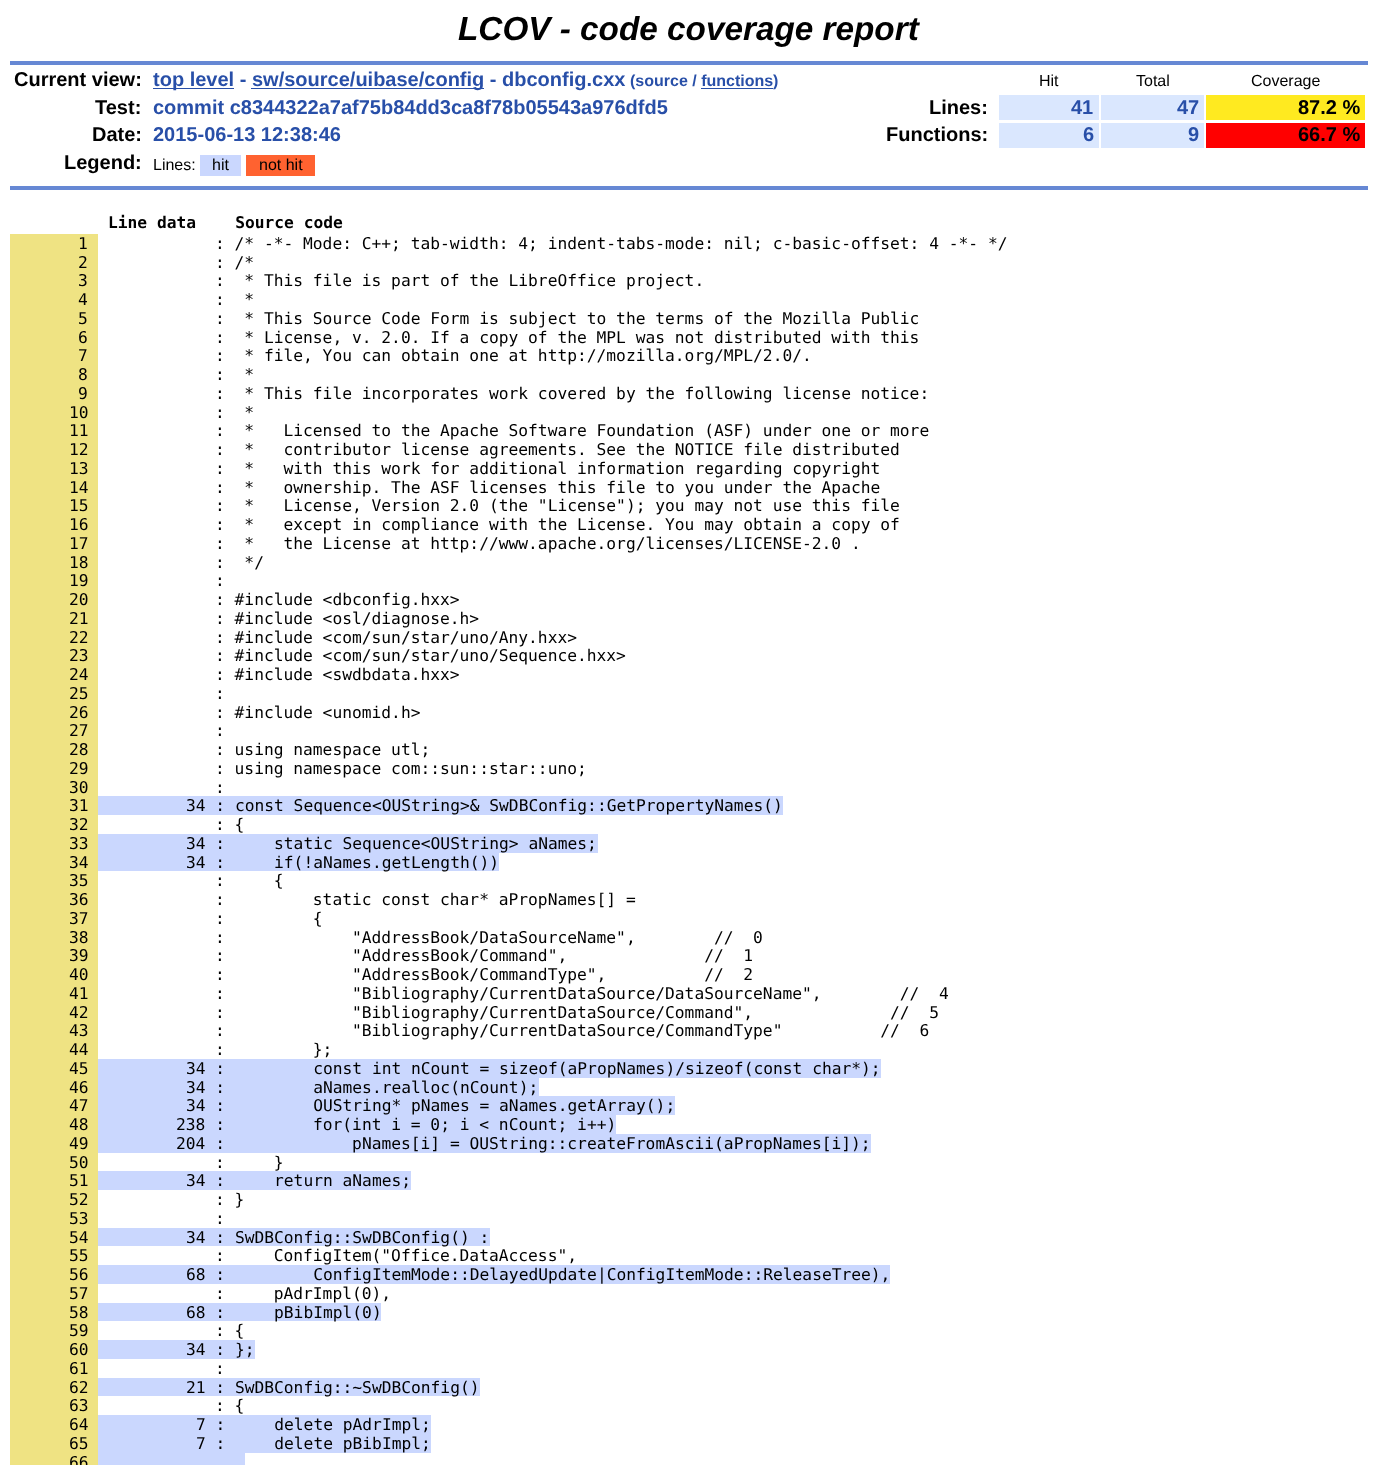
(async () => {
    const canvas = document.querySelector("canvas");
    canvas.width = 1377;
    canvas.height = 1465;
    const context = canvas.getContext("2d");
    context.miterLimit = 4;
    context.fontKerning = "normal";
    function write(s, x, y, font, color) {
        context.font = font;
        context.fillStyle = color;
        context.fillText(s, x, y);
    }
    function block(x, y, w, h, color) {
        context.fillStyle = color;
        context.fillRect(x, y, w, h);
    }

    block(0, 0, 1377, 1465, "rgb(255, 255, 255)");
    write("LCOV - code coverage report", 458, 40, "italic bold 33.3px Liberation Sans", "rgb(0, 0, 0)");
    block(10, 61, 1358, 4, "rgb(102, 136, 212)");
    write("Current view:", 14, 86, "bold 20px Liberation Sans", "rgb(0, 0, 0)");
    block(153, 88, 81, 1, "rgb(40, 79, 168)");
    write("top level -", 153, 86, "bold 20px Liberation Sans", "rgb(40, 79, 168)");
    block(251, 88, 233, 1, "rgb(40, 79, 168)");
    write("sw/source/uibase/config - dbconfig.cxx", 252, 86, "bold 20px Liberation Sans", "rgb(40, 79, 168)");
    write("(source / functions", 630, 86, "bold 16px Liberation Sans", "rgb(40, 79, 168)");
    block(701, 88, 72, 1, "rgb(40, 79, 168)");
    write(")", 773, 86, "bold 16px Liberation Sans", "rgb(40, 79, 168)");
    write("Hit", 1039, 86, "16px Liberation Sans", "rgb(0, 0, 0)");
    write("Total", 1136, 86, "16px Liberation Sans", "rgb(0, 0, 0)");
    write("Coverage", 1251, 86, "16px Liberation Sans", "rgb(0, 0, 0)");
    write("Test:", 95, 114, "bold 20px Liberation Sans", "rgb(0, 0, 0)");
    write("commit c8344322a7af75b84dd3ca8f78b05543a976dfd5", 153, 114, "bold 20px Liberation Sans", "rgb(40, 79, 168)");
    write("Lines:", 929, 114, "bold 20px Liberation Sans", "rgb(0, 0, 0)");
    block(999, 95, 100, 25, "rgb(218, 231, 254)");
    write("41", 1071, 114, "bold 20px Liberation Sans", "rgb(40, 79, 168)");
    block(1101, 95, 103, 25, "rgb(218, 231, 254)");
    write("47", 1177, 114, "bold 20px Liberation Sans", "rgb(40, 79, 168)");
    block(1206, 95, 159, 25, "rgb(255, 234, 32)");
    write("87.2 %", 1298, 114, "bold 20px Liberation Sans", "rgb(0, 0, 0)");
    write("Date:", 92, 141, "bold 20px Liberation Sans", "rgb(0, 0, 0)");
    write("2015-06-13 12:38:46", 153, 141, "bold 20px Liberation Sans", "rgb(40, 79, 168)");
    write("Functions:", 886, 141, "bold 20px Liberation Sans", "rgb(0, 0, 0)");
    block(999, 123, 100, 25, "rgb(218, 231, 254)");
    write("6", 1083, 141, "bold 20px Liberation Sans", "rgb(40, 79, 168)");
    block(1101, 123, 103, 25, "rgb(218, 231, 254)");
    write("9", 1188, 141, "bold 20px Liberation Sans", "rgb(40, 79, 168)");
    block(1206, 123, 159, 25, "rgb(255, 0, 0)");
    write("66.7 %", 1298, 141, "bold 20px Liberation Sans", "rgb(0, 0, 0)");
    write("Legend:", 64, 169, "bold 20px Liberation Sans", "rgb(0, 0, 0)");
    write("Lines:", 153, 170, "16px Liberation Sans", "rgb(0, 0, 0)");
    block(200, 155, 41, 21, "rgb(202, 215, 254)");
    write("hit", 212, 170, "16px Liberation Sans", "rgb(0, 0, 0)");
    block(246, 155, 69, 21, "rgb(255, 98, 48)");
    write("not hit", 259, 170, "16px Liberation Sans", "rgb(0, 0, 0)");
    block(10, 186, 1358, 4, "rgb(102, 136, 212)");
    write("Line data    Source code", 108, 228, "bold 16.25px DejaVu Sans Mono", "rgb(0, 0, 0)");
    block(10, 234, 88, 1231, "rgb(239, 227, 131)");
    write("1", 78, 249, "16.25px DejaVu Sans Mono", "rgb(0, 0, 0)");
    write(": /* -*- Mode: C++; tab-width: 4; indent-tabs-mode: nil; c-basic-offset: 4 -*- */", 215, 249, "16.25px DejaVu Sans Mono", "rgb(0, 0, 0)");
    write("2", 78, 268, "16.25px DejaVu Sans Mono", "rgb(0, 0, 0)");
    write(": /*", 215, 268, "16.25px DejaVu Sans Mono", "rgb(0, 0, 0)");
    write("3", 78, 286, "16.25px DejaVu Sans Mono", "rgb(0, 0, 0)");
    write(":  * This file is part of the LibreOffice project.", 215, 286, "16.25px DejaVu Sans Mono", "rgb(0, 0, 0)");
    write("4", 78, 305, "16.25px DejaVu Sans Mono", "rgb(0, 0, 0)");
    write(":  *", 215, 305, "16.25px DejaVu Sans Mono", "rgb(0, 0, 0)");
    write("5", 78, 324, "16.25px DejaVu Sans Mono", "rgb(0, 0, 0)");
    write(":  * This Source Code Form is subject to the terms of the Mozilla Public", 215, 324, "16.25px DejaVu Sans Mono", "rgb(0, 0, 0)");
    write("6", 78, 343, "16.25px DejaVu Sans Mono", "rgb(0, 0, 0)");
    write(":  * License, v. 2.0. If a copy of the MPL was not distributed with this", 215, 343, "16.25px DejaVu Sans Mono", "rgb(0, 0, 0)");
    write("7", 78, 361, "16.25px DejaVu Sans Mono", "rgb(0, 0, 0)");
    write(":  * file, You can obtain one at http://mozilla.org/MPL/2.0/.", 215, 361, "16.25px DejaVu Sans Mono", "rgb(0, 0, 0)");
    write("8", 78, 380, "16.25px DejaVu Sans Mono", "rgb(0, 0, 0)");
    write(":  *", 215, 380, "16.25px DejaVu Sans Mono", "rgb(0, 0, 0)");
    write("9", 78, 399, "16.25px DejaVu Sans Mono", "rgb(0, 0, 0)");
    write(":  * This file incorporates work covered by the following license notice:", 215, 399, "16.25px DejaVu Sans Mono", "rgb(0, 0, 0)");
    write("10", 69, 418, "16.25px DejaVu Sans Mono", "rgb(0, 0, 0)");
    write(":  *", 215, 418, "16.25px DejaVu Sans Mono", "rgb(0, 0, 0)");
    write("11", 69, 436, "16.25px DejaVu Sans Mono", "rgb(0, 0, 0)");
    write(":  *   Licensed to the Apache Software Foundation (ASF) under one or more", 215, 436, "16.25px DejaVu Sans Mono", "rgb(0, 0, 0)");
    write("12", 69, 455, "16.25px DejaVu Sans Mono", "rgb(0, 0, 0)");
    write(":  *   contributor license agreements. See the NOTICE file distributed", 215, 455, "16.25px DejaVu Sans Mono", "rgb(0, 0, 0)");
    write("13", 69, 474, "16.25px DejaVu Sans Mono", "rgb(0, 0, 0)");
    write(":  *   with this work for additional information regarding copyright", 215, 474, "16.25px DejaVu Sans Mono", "rgb(0, 0, 0)");
    write("14", 69, 493, "16.25px DejaVu Sans Mono", "rgb(0, 0, 0)");
    write(":  *   ownership. The ASF licenses this file to you under the Apache", 215, 493, "16.25px DejaVu Sans Mono", "rgb(0, 0, 0)");
    write("15", 69, 511, "16.25px DejaVu Sans Mono", "rgb(0, 0, 0)");
    write(":  *   License, Version 2.0 (the \"License\"); you may not use this file", 215, 511, "16.25px DejaVu Sans Mono", "rgb(0, 0, 0)");
    write("16", 69, 530, "16.25px DejaVu Sans Mono", "rgb(0, 0, 0)");
    write(":  *   except in compliance with the License. You may obtain a copy of", 215, 530, "16.25px DejaVu Sans Mono", "rgb(0, 0, 0)");
    write("17", 69, 549, "16.25px DejaVu Sans Mono", "rgb(0, 0, 0)");
    write(":  *   the License at http://www.apache.org/licenses/LICENSE-2.0 .", 215, 549, "16.25px DejaVu Sans Mono", "rgb(0, 0, 0)");
    write("18", 69, 568, "16.25px DejaVu Sans Mono", "rgb(0, 0, 0)");
    write(":  */", 215, 568, "16.25px DejaVu Sans Mono", "rgb(0, 0, 0)");
    write("19", 69, 586, "16.25px DejaVu Sans Mono", "rgb(0, 0, 0)");
    write(":", 215, 586, "16.25px DejaVu Sans Mono", "rgb(0, 0, 0)");
    write("20", 69, 605, "16.25px DejaVu Sans Mono", "rgb(0, 0, 0)");
    write(": #include <dbconfig.hxx>", 215, 605, "16.25px DejaVu Sans Mono", "rgb(0, 0, 0)");
    write("21", 69, 624, "16.25px DejaVu Sans Mono", "rgb(0, 0, 0)");
    write(": #include <osl/diagnose.h>", 215, 624, "16.25px DejaVu Sans Mono", "rgb(0, 0, 0)");
    write("22", 69, 643, "16.25px DejaVu Sans Mono", "rgb(0, 0, 0)");
    write(": #include <com/sun/star/uno/Any.hxx>", 215, 643, "16.25px DejaVu Sans Mono", "rgb(0, 0, 0)");
    write("23", 69, 661, "16.25px DejaVu Sans Mono", "rgb(0, 0, 0)");
    write(": #include <com/sun/star/uno/Sequence.hxx>", 215, 661, "16.25px DejaVu Sans Mono", "rgb(0, 0, 0)");
    write("24", 69, 680, "16.25px DejaVu Sans Mono", "rgb(0, 0, 0)");
    write(": #include <swdbdata.hxx>", 215, 680, "16.25px DejaVu Sans Mono", "rgb(0, 0, 0)");
    write("25", 69, 699, "16.25px DejaVu Sans Mono", "rgb(0, 0, 0)");
    write(":", 215, 699, "16.25px DejaVu Sans Mono", "rgb(0, 0, 0)");
    write("26", 69, 718, "16.25px DejaVu Sans Mono", "rgb(0, 0, 0)");
    write(": #include <unomid.h>", 215, 718, "16.25px DejaVu Sans Mono", "rgb(0, 0, 0)");
    write("27", 69, 736, "16.25px DejaVu Sans Mono", "rgb(0, 0, 0)");
    write(":", 215, 736, "16.25px DejaVu Sans Mono", "rgb(0, 0, 0)");
    write("28", 69, 755, "16.25px DejaVu Sans Mono", "rgb(0, 0, 0)");
    write(": using namespace utl;", 215, 755, "16.25px DejaVu Sans Mono", "rgb(0, 0, 0)");
    write("29", 69, 774, "16.25px DejaVu Sans Mono", "rgb(0, 0, 0)");
    write(": using namespace com::sun::star::uno;", 215, 774, "16.25px DejaVu Sans Mono", "rgb(0, 0, 0)");
    write("30", 69, 793, "16.25px DejaVu Sans Mono", "rgb(0, 0, 0)");
    write(":", 215, 793, "16.25px DejaVu Sans Mono", "rgb(0, 0, 0)");
    write("31", 69, 811, "16.25px DejaVu Sans Mono", "rgb(0, 0, 0)");
    block(98, 796, 685, 19, "rgb(202, 215, 254)");
    write("34 : const Sequence<OUString>& SwDBConfig::GetPropertyNames()", 186, 811, "16.25px DejaVu Sans Mono", "rgb(0, 0, 0)");
    write("32", 69, 830, "16.25px DejaVu Sans Mono", "rgb(0, 0, 0)");
    write(": {", 215, 830, "16.25px DejaVu Sans Mono", "rgb(0, 0, 0)");
    write("33", 69, 849, "16.25px DejaVu Sans Mono", "rgb(0, 0, 0)");
    block(98, 834, 500, 19, "rgb(202, 215, 254)");
    write("34 :     static Sequence<OUString> aNames;", 186, 849, "16.25px DejaVu Sans Mono", "rgb(0, 0, 0)");
    write("34", 69, 868, "16.25px DejaVu Sans Mono", "rgb(0, 0, 0)");
    block(98, 853, 401, 18, "rgb(202, 215, 254)");
    write("34 :     if(!aNames.getLength())", 186, 868, "16.25px DejaVu Sans Mono", "rgb(0, 0, 0)");
    write("35", 69, 886, "16.25px DejaVu Sans Mono", "rgb(0, 0, 0)");
    write(":     {", 215, 886, "16.25px DejaVu Sans Mono", "rgb(0, 0, 0)");
    write("36", 69, 905, "16.25px DejaVu Sans Mono", "rgb(0, 0, 0)");
    write(":         static const char* aPropNames[] =", 215, 905, "16.25px DejaVu Sans Mono", "rgb(0, 0, 0)");
    write("37", 69, 924, "16.25px DejaVu Sans Mono", "rgb(0, 0, 0)");
    write(":         {", 215, 924, "16.25px DejaVu Sans Mono", "rgb(0, 0, 0)");
    write("38", 69, 943, "16.25px DejaVu Sans Mono", "rgb(0, 0, 0)");
    write(":             \"AddressBook/DataSourceName\",        //  0", 215, 943, "16.25px DejaVu Sans Mono", "rgb(0, 0, 0)");
    write("39", 69, 961, "16.25px DejaVu Sans Mono", "rgb(0, 0, 0)");
    write(":             \"AddressBook/Command\",              //  1", 215, 961, "16.25px DejaVu Sans Mono", "rgb(0, 0, 0)");
    write("40", 69, 980, "16.25px DejaVu Sans Mono", "rgb(0, 0, 0)");
    write(":             \"AddressBook/CommandType\",          //  2", 215, 980, "16.25px DejaVu Sans Mono", "rgb(0, 0, 0)");
    write("41", 69, 999, "16.25px DejaVu Sans Mono", "rgb(0, 0, 0)");
    write(":             \"Bibliography/CurrentDataSource/DataSourceName\",        //  4", 215, 999, "16.25px DejaVu Sans Mono", "rgb(0, 0, 0)");
    write("42", 69, 1018, "16.25px DejaVu Sans Mono", "rgb(0, 0, 0)");
    write(":             \"Bibliography/CurrentDataSource/Command\",              //  5", 215, 1018, "16.25px DejaVu Sans Mono", "rgb(0, 0, 0)");
    write("43", 69, 1036, "16.25px DejaVu Sans Mono", "rgb(0, 0, 0)");
    write(":             \"Bibliography/CurrentDataSource/CommandType\"          //  6", 215, 1036, "16.25px DejaVu Sans Mono", "rgb(0, 0, 0)");
    write("44", 69, 1055, "16.25px DejaVu Sans Mono", "rgb(0, 0, 0)");
    write(":         };", 215, 1055, "16.25px DejaVu Sans Mono", "rgb(0, 0, 0)");
    write("45", 69, 1074, "16.25px DejaVu Sans Mono", "rgb(0, 0, 0)");
    block(98, 1059, 783, 19, "rgb(202, 215, 254)");
    write("34 :         const int nCount = sizeof(aPropNames)/sizeof(const char*);", 186, 1074, "16.25px DejaVu Sans Mono", "rgb(0, 0, 0)");
    write("46", 69, 1093, "16.25px DejaVu Sans Mono", "rgb(0, 0, 0)");
    block(98, 1078, 441, 18, "rgb(202, 215, 254)");
    write("34 :         aNames.realloc(nCount);", 186, 1093, "16.25px DejaVu Sans Mono", "rgb(0, 0, 0)");
    write("47", 69, 1111, "16.25px DejaVu Sans Mono", "rgb(0, 0, 0)");
    block(98, 1096, 577, 19, "rgb(202, 215, 254)");
    write("34 :         OUString* pNames = aNames.getArray();", 186, 1111, "16.25px DejaVu Sans Mono", "rgb(0, 0, 0)");
    write("48", 69, 1130, "16.25px DejaVu Sans Mono", "rgb(0, 0, 0)");
    block(98, 1115, 518, 19, "rgb(202, 215, 254)");
    write("238 :         for(int i = 0; i < nCount; i++)", 176, 1130, "16.25px DejaVu Sans Mono", "rgb(0, 0, 0)");
    write("49", 69, 1149, "16.25px DejaVu Sans Mono", "rgb(0, 0, 0)");
    block(98, 1134, 773, 19, "rgb(202, 215, 254)");
    write("204 :             pNames[i] = OUString::createFromAscii(aPropNames[i]);", 176, 1149, "16.25px DejaVu Sans Mono", "rgb(0, 0, 0)");
    write("50", 69, 1168, "16.25px DejaVu Sans Mono", "rgb(0, 0, 0)");
    write(":     }", 215, 1168, "16.25px DejaVu Sans Mono", "rgb(0, 0, 0)");
    write("51", 69, 1186, "16.25px DejaVu Sans Mono", "rgb(0, 0, 0)");
    block(98, 1171, 313, 19, "rgb(202, 215, 254)");
    write("34 :     return aNames;", 186, 1186, "16.25px DejaVu Sans Mono", "rgb(0, 0, 0)");
    write("52", 69, 1205, "16.25px DejaVu Sans Mono", "rgb(0, 0, 0)");
    write(": }", 215, 1205, "16.25px DejaVu Sans Mono", "rgb(0, 0, 0)");
    write("53", 69, 1224, "16.25px DejaVu Sans Mono", "rgb(0, 0, 0)");
    write(":", 215, 1224, "16.25px DejaVu Sans Mono", "rgb(0, 0, 0)");
    write("54", 69, 1243, "16.25px DejaVu Sans Mono", "rgb(0, 0, 0)");
    block(98, 1228, 392, 18, "rgb(202, 215, 254)");
    write("34 : SwDBConfig::SwDBConfig() :", 186, 1243, "16.25px DejaVu Sans Mono", "rgb(0, 0, 0)");
    write("55", 69, 1261, "16.25px DejaVu Sans Mono", "rgb(0, 0, 0)");
    write(":     ConfigItem(\"Office.DataAccess\",", 215, 1261, "16.25px DejaVu Sans Mono", "rgb(0, 0, 0)");
    write("56", 69, 1280, "16.25px DejaVu Sans Mono", "rgb(0, 0, 0)");
    block(98, 1265, 792, 19, "rgb(202, 215, 254)");
    write("68 :         ConfigItemMode::DelayedUpdate|ConfigItemMode::ReleaseTree),", 186, 1280, "16.25px DejaVu Sans Mono", "rgb(0, 0, 0)");
    write("57", 69, 1299, "16.25px DejaVu Sans Mono", "rgb(0, 0, 0)");
    write(":     pAdrImpl(0),", 215, 1299, "16.25px DejaVu Sans Mono", "rgb(0, 0, 0)");
    write("58", 69, 1318, "16.25px DejaVu Sans Mono", "rgb(0, 0, 0)");
    block(98, 1303, 283, 18, "rgb(202, 215, 254)");
    write("68 :     pBibImpl(0)", 186, 1318, "16.25px DejaVu Sans Mono", "rgb(0, 0, 0)");
    write("59", 69, 1336, "16.25px DejaVu Sans Mono", "rgb(0, 0, 0)");
    write(": {", 215, 1336, "16.25px DejaVu Sans Mono", "rgb(0, 0, 0)");
    write("60", 69, 1355, "16.25px DejaVu Sans Mono", "rgb(0, 0, 0)");
    block(98, 1340, 157, 19, "rgb(202, 215, 254)");
    write("34 : };", 186, 1355, "16.25px DejaVu Sans Mono", "rgb(0, 0, 0)");
    write("61", 69, 1374, "16.25px DejaVu Sans Mono", "rgb(0, 0, 0)");
    write(":", 215, 1374, "16.25px DejaVu Sans Mono", "rgb(0, 0, 0)");
    write("62", 69, 1393, "16.25px DejaVu Sans Mono", "rgb(0, 0, 0)");
    block(98, 1378, 382, 18, "rgb(202, 215, 254)");
    write("21 : SwDBConfig::~SwDBConfig()", 186, 1393, "16.25px DejaVu Sans Mono", "rgb(0, 0, 0)");
    write("63", 69, 1411, "16.25px DejaVu Sans Mono", "rgb(0, 0, 0)");
    write(": {", 215, 1411, "16.25px DejaVu Sans Mono", "rgb(0, 0, 0)");
    write("64", 69, 1430, "16.25px DejaVu Sans Mono", "rgb(0, 0, 0)");
    block(98, 1415, 333, 38, "rgb(202, 215, 254)");
    write("7 :     delete pAdrImpl;", 196, 1430, "16.25px DejaVu Sans Mono", "rgb(0, 0, 0)");
    write("65", 69, 1449, "16.25px DejaVu Sans Mono", "rgb(0, 0, 0)");
    write("7 :     delete pBibImpl;", 196, 1449, "16.25px DejaVu Sans Mono", "rgb(0, 0, 0)");
    write("66", 69, 1468, "16.25px DejaVu Sans Mono", "rgb(0, 0, 0)");
    block(98, 1453, 147, 12, "rgb(202, 215, 254)");
})();
